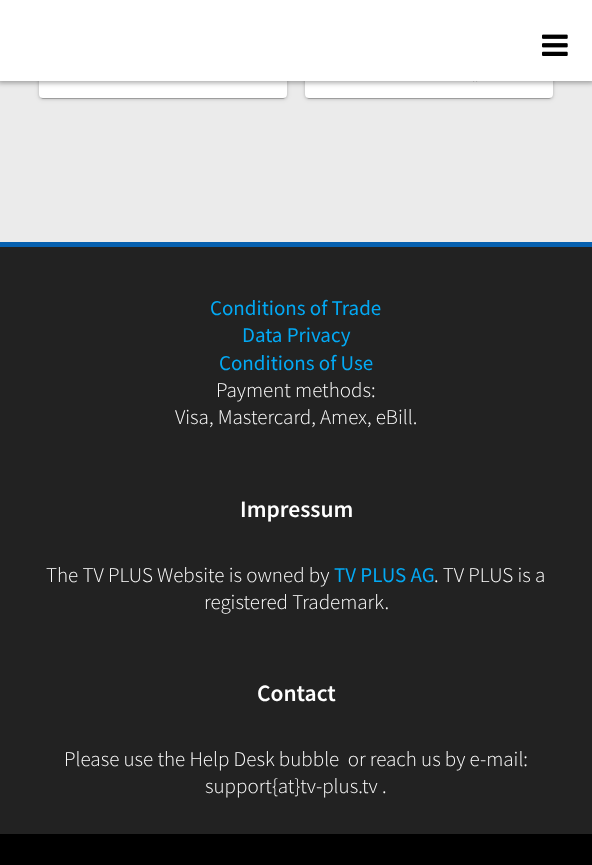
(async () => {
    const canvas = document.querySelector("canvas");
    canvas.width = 592;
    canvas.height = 865;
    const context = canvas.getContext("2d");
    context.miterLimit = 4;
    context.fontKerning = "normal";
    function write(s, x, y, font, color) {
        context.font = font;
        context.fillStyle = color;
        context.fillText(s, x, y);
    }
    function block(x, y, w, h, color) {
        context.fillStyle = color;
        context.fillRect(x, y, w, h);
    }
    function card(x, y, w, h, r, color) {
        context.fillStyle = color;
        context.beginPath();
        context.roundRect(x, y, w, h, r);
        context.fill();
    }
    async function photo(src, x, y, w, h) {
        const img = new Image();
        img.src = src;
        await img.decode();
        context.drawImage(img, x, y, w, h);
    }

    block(0, 0, 592, 865, "rgb(235, 235, 235)");
    context.fillStyle = "rgba(0, 0, 0, 0.12)";
    context.filter = "blur(2.5px)";
    context.beginPath();
    context.roundRect(39, -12, 248, 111, 4);
    context.fill();
    context.filter = "none";
    context.fillStyle = "rgba(0, 0, 0, 0.2)";
    context.filter = "blur(0.5px)";
    context.beginPath();
    context.roundRect(41, -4, 244, 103, 2);
    context.fill();
    context.filter = "none";
    context.fillStyle = "rgba(0, 0, 0, 0.14)";
    context.filter = "blur(1px)";
    context.beginPath();
    context.roundRect(39, -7, 248, 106, 4);
    context.fill();
    context.filter = "none";
    card(39, -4, 248, 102, 4, "rgb(255, 255, 255)");
    context.fillStyle = "rgba(0, 0, 0, 0.12)";
    context.filter = "blur(2.5px)";
    context.beginPath();
    context.roundRect(305, -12, 248, 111, 4);
    context.fill();
    context.filter = "none";
    context.fillStyle = "rgba(0, 0, 0, 0.2)";
    context.filter = "blur(0.5px)";
    context.beginPath();
    context.roundRect(307, -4, 244, 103, 2);
    context.fill();
    context.filter = "none";
    context.fillStyle = "rgba(0, 0, 0, 0.14)";
    context.filter = "blur(1px)";
    context.beginPath();
    context.roundRect(305, -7, 248, 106, 4);
    context.fill();
    context.filter = "none";
    card(305, -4, 248, 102, 4, "rgb(255, 255, 255)");
    await photo("media/2.png", 473, 81, 5, 1);
    context.fillStyle = "rgba(0, 0, 0, 0.33)";
    context.filter = "blur(2.5px)";
    context.beginPath();
    context.rect(-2, -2, 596, 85);
    context.fill();
    context.filter = "none";
    block(0, 0, 592, 81, "rgb(255, 255, 255)");
    await photo("media/1.png", 542, 34, 26, 22);
    block(0, 247, 592, 587, "rgb(34, 34, 34)");
    block(0, 242, 592, 5, "rgb(6, 96, 175)");
    write("Conditions of Trade", 210, 315, "21px Source Sans Pro", "rgb(3, 169, 244)");
    write("Data Privacy", 242, 342, "21px Source Sans Pro", "rgb(3, 169, 244)");
    write("Conditions of Use", 219, 370, "21px Source Sans Pro", "rgb(3, 169, 244)");
    write("Payment methods:", 216, 397, "300 21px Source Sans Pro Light", "rgb(255, 255, 255)");
    write("Visa, Mastercard, Amex, eBill.", 175, 424, "300 21px Source Sans Pro Light", "rgb(255, 255, 255)");
    write("Impressum", 240, 517, "600 23.5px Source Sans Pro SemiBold", "rgb(255, 255, 255)");
    write("The TV PLUS Website is owned by", 46, 582, "300 21px Source Sans Pro Light", "rgb(255, 255, 255)");
    write("TV PLUS AG", 334, 582, "21px Source Sans Pro", "rgb(3, 169, 244)");
    write(". TV PLUS is a", 434, 582, "300 21px Source Sans Pro Light", "rgb(255, 255, 255)");
    write("registered Trademark.", 204, 609, "300 21px Source Sans Pro Light", "rgb(255, 255, 255)");
    write("Contact", 257, 701, "600 23.5px Source Sans Pro SemiBold", "rgb(255, 255, 255)");
    write("Please use the Help Desk bubble  or reach us by e-mail:", 64, 766, "300 21px Source Sans Pro Light", "rgb(255, 255, 255)");
    write("support{at}tv-plus.tv .", 205, 793, "300 21px Source Sans Pro Light", "rgb(255, 255, 255)");
    block(0, 834, 592, 31, "rgb(0, 0, 0)");
})();
